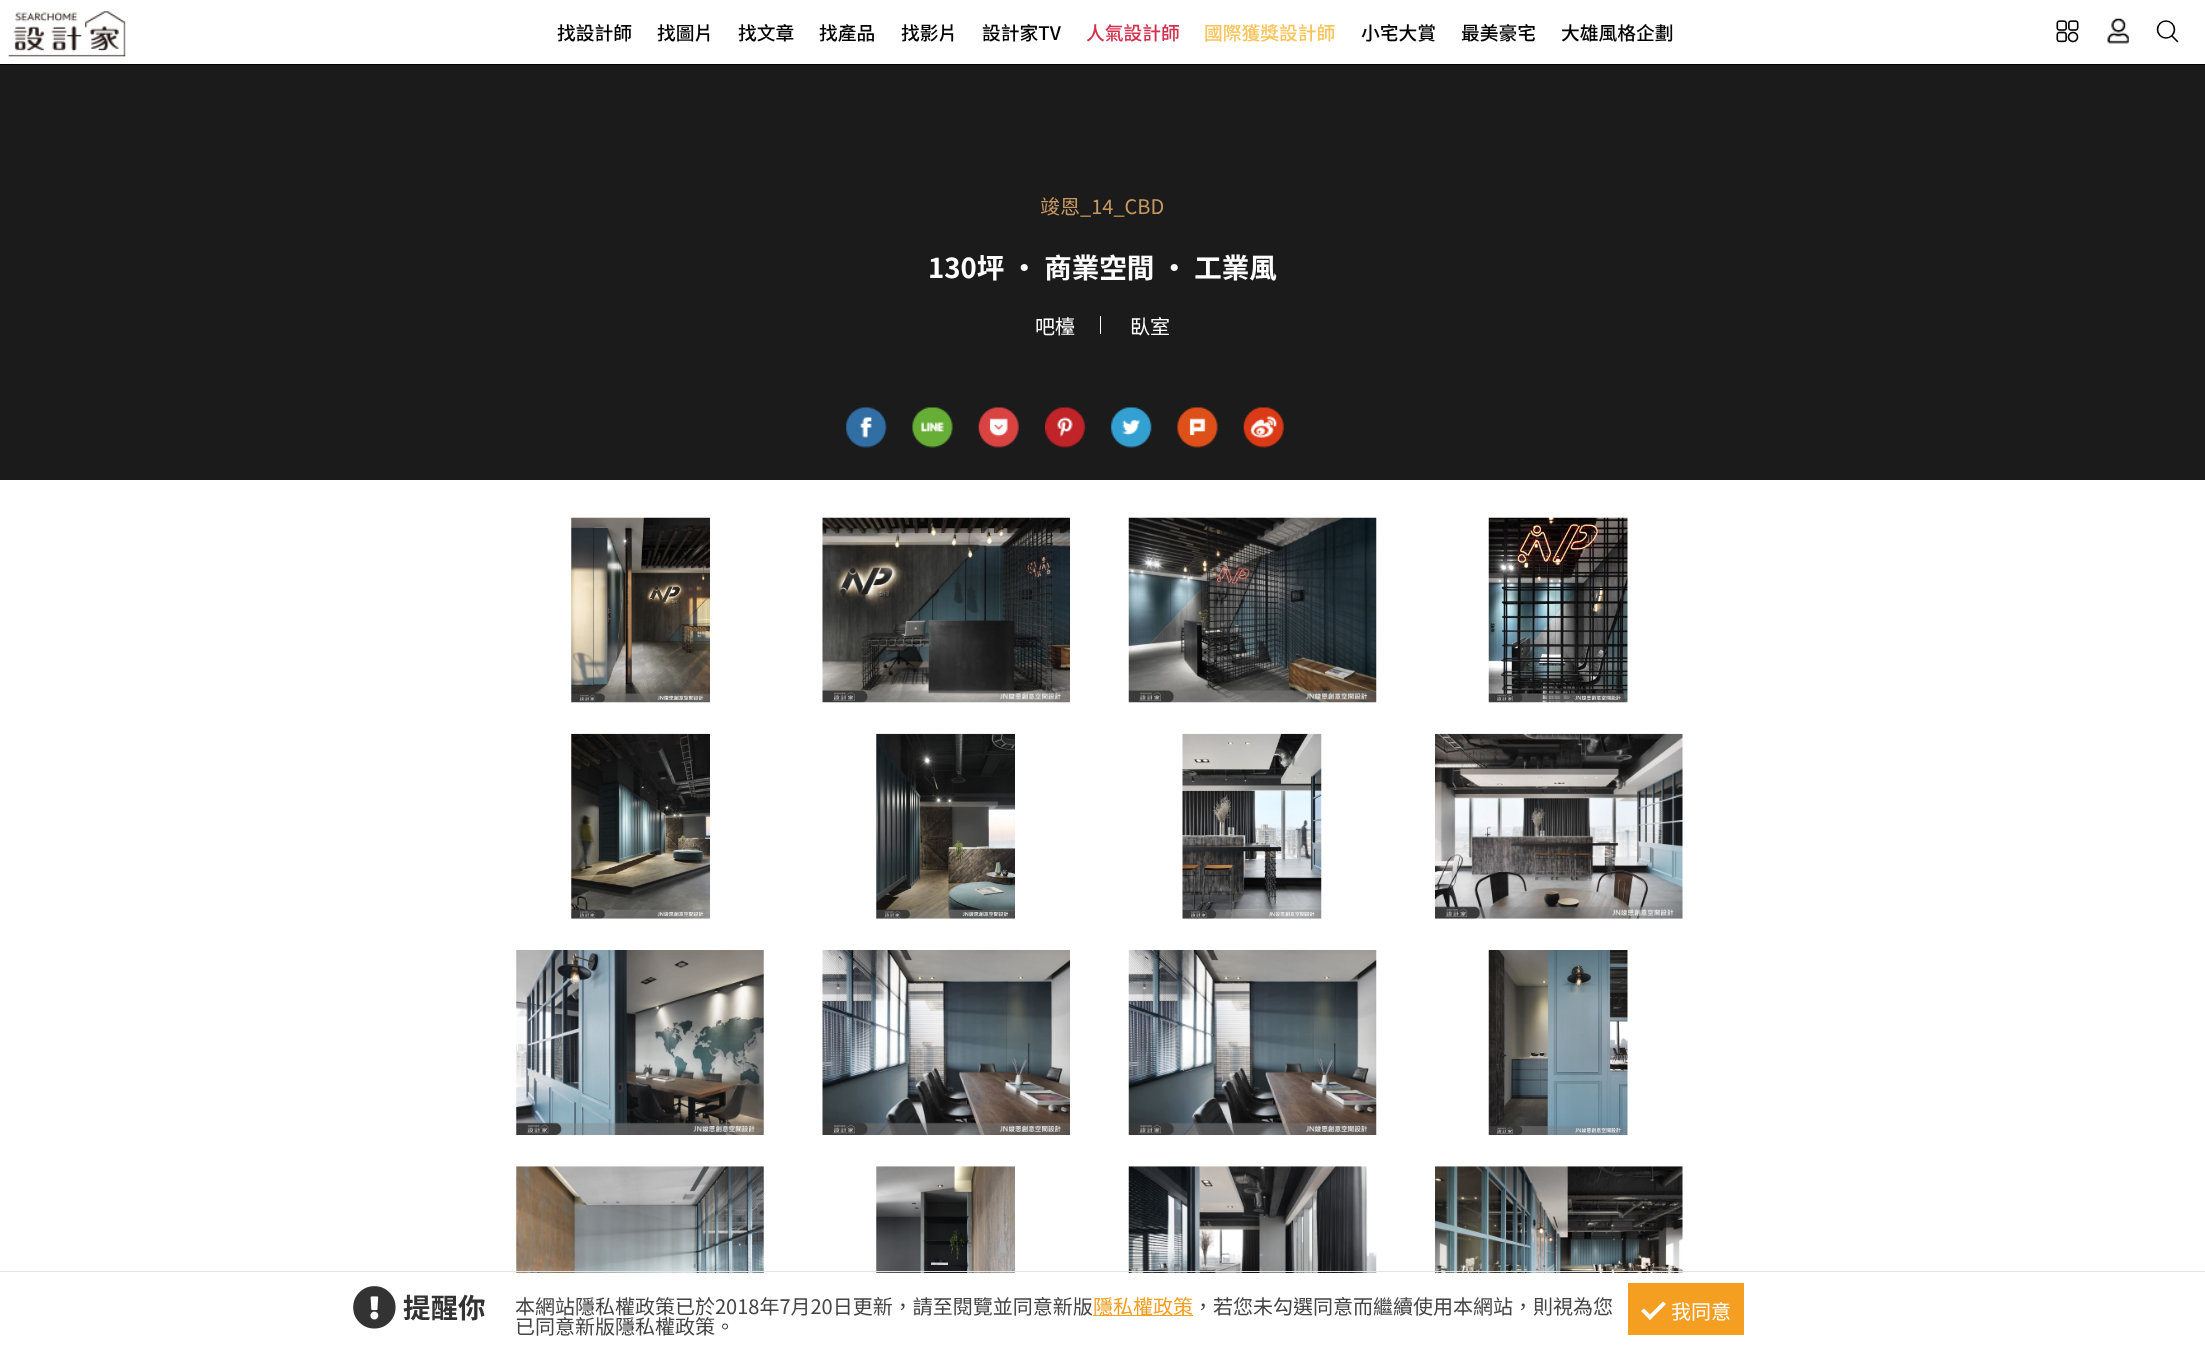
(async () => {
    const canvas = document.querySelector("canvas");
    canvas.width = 2205;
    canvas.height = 1345;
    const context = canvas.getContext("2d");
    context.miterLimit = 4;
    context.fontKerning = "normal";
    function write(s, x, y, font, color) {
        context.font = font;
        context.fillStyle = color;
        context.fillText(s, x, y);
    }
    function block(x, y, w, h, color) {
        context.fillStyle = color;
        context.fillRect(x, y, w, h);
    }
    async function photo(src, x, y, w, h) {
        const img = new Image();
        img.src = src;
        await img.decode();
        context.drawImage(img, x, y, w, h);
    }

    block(0, 0, 2205, 1345, "rgb(255, 255, 255)");
    block(0, 64, 2205, 1, "rgb(0, 0, 0)");
    await photo("media/1.png", 8, 11, 118, 46);
    write("找設計師", 557, 40, "500 18.75px Noto Sans TC", "rgb(0, 0, 0)");
    write("找圖片", 657, 40, "500 18.75px Noto Sans TC", "rgb(0, 0, 0)");
    write("找文章", 738, 40, "500 18.75px Noto Sans TC", "rgb(0, 0, 0)");
    write("找產品", 819, 40, "500 18.75px Noto Sans TC", "rgb(0, 0, 0)");
    write("找影片", 901, 40, "500 18.75px Noto Sans TC", "rgb(0, 0, 0)");
    write("設計家TV", 982, 40, "500 18.75px Noto Sans TC", "rgb(0, 0, 0)");
    write("人氣設計師", 1086, 40, "500 18.75px Noto Sans TC", "rgb(211, 48, 77)");
    write("國際獲獎設計師", 1204, 40, "500 18.75px Noto Sans TC", "rgb(249, 196, 92)");
    write("小宅大賞", 1361, 40, "500 18.75px Noto Sans TC", "rgb(0, 0, 0)");
    write("最美豪宅", 1461, 40, "500 18.75px Noto Sans TC", "rgb(0, 0, 0)");
    write("大雄風格企劃", 1561, 40, "500 18.75px Noto Sans TC", "rgb(0, 0, 0)");
    await photo("media/2.png", 2056, 20, 23, 23);
    await photo("media/3.png", 2107, 18, 22, 26);
    context.beginPath();
    context.arc(2166, 29.5, 8.5, 0, Math.PI * 2);
    context.strokeStyle = "rgb(0, 0, 0)";
    context.lineWidth = 1.6;
    context.stroke();
    context.beginPath();
    context.moveTo(2172, 36);
    context.lineTo(2177.5, 41.5);
    context.lineCap = "round";
    context.stroke();
    block(0, 65, 2205, 415, "rgb(27, 27, 28)");
    await photo("media/4.png", 846, 407, 41, 41);
    await photo("media/5.png", 912, 407, 41, 41);
    await photo("media/6.png", 978, 407, 41, 41);
    await photo("media/7.png", 1045, 407, 41, 41);
    await photo("media/8.png", 1111, 407, 41, 41);
    await photo("media/9.png", 1177, 407, 41, 41);
    await photo("media/10.png", 1243, 407, 41, 41);
    write("竣恩_14_CBD", 1040, 214, "20px Noto Sans TC", "rgb(200, 152, 99)");
    write("130坪 ‧ 商業空間 ‧ 工業風", 928, 278, "bold 27.5px Noto Sans TC", "rgb(255, 255, 255)");
    block(1100, 316, 1, 18, "rgb(255, 255, 255)");
    write("吧檯", 1035, 334, "20px Noto Sans TC", "rgb(255, 255, 255)");
    write("臥室", 1130, 334, "20px Noto Sans TC", "rgb(255, 255, 255)");
    await photo("media/11.png", 571, 517, 139, 186);
    await photo("media/12.png", 822, 517, 248, 186);
    await photo("media/13.png", 1128, 517, 249, 186);
    await photo("media/14.png", 1488, 517, 140, 186);
    await photo("media/15.png", 571, 733, 139, 186);
    await photo("media/16.png", 876, 733, 139, 186);
    await photo("media/17.png", 1182, 733, 140, 186);
    await photo("media/18.png", 1435, 733, 248, 186);
    await photo("media/19.png", 516, 950, 248, 185);
    await photo("media/20.png", 822, 950, 248, 185);
    await photo("media/21.png", 1128, 950, 249, 185);
    await photo("media/22.png", 1488, 950, 140, 185);
    await photo("media/23.png", 516, 1166, 248, 107);
    await photo("media/24.png", 876, 1166, 139, 107);
    await photo("media/25.png", 1128, 1166, 249, 107);
    await photo("media/26.png", 1435, 1166, 248, 107);
    context.strokeStyle = "rgb(228, 228, 228)";
    context.lineWidth = 1;
    context.strokeRect(-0.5, 1271.5, 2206, 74);
    await photo("media/27.png", 353, 1286, 43, 43);
    write("提醒你", 403, 1318, "bold 27.5px Noto Sans TC", "rgb(51, 51, 51)");
    write("本網站隱私權政策已於2018年7月20日更新，請至閱覽並同意新版", 515, 1314, "20px Noto Sans TC", "rgb(68, 68, 68)");
    block(1093, 1315, 100, 1, "rgb(244, 158, 34)");
    write("隱私權政策", 1093, 1314, "20px Noto Sans TC", "rgb(244, 158, 34)");
    write("，若您未勾選同意而繼續使用本網站，則視為您", 1193, 1314, "20px Noto Sans TC", "rgb(68, 68, 68)");
    write("已同意新版隱私權政策。", 515, 1334, "20px Noto Sans TC", "rgb(68, 68, 68)");
    block(1628, 1283, 116, 52, "rgb(244, 158, 34)");
    context.fillStyle = "rgb(255, 255, 255)";
    context.beginPath();
    context.moveTo(1663, 1301.5);
    context.lineTo(1666, 1304);
    context.lineTo(1650, 1320);
    context.lineTo(1647.5, 1317);
    context.closePath();
    context.fill();
    context.beginPath();
    context.moveTo(1644, 1308.5);
    context.lineTo(1652.5, 1317);
    context.lineTo(1650, 1320);
    context.lineTo(1641, 1311);
    context.closePath();
    context.fill();
    write("我同意", 1671, 1319, "20px Noto Sans TC", "rgb(255, 255, 255)");
})();
